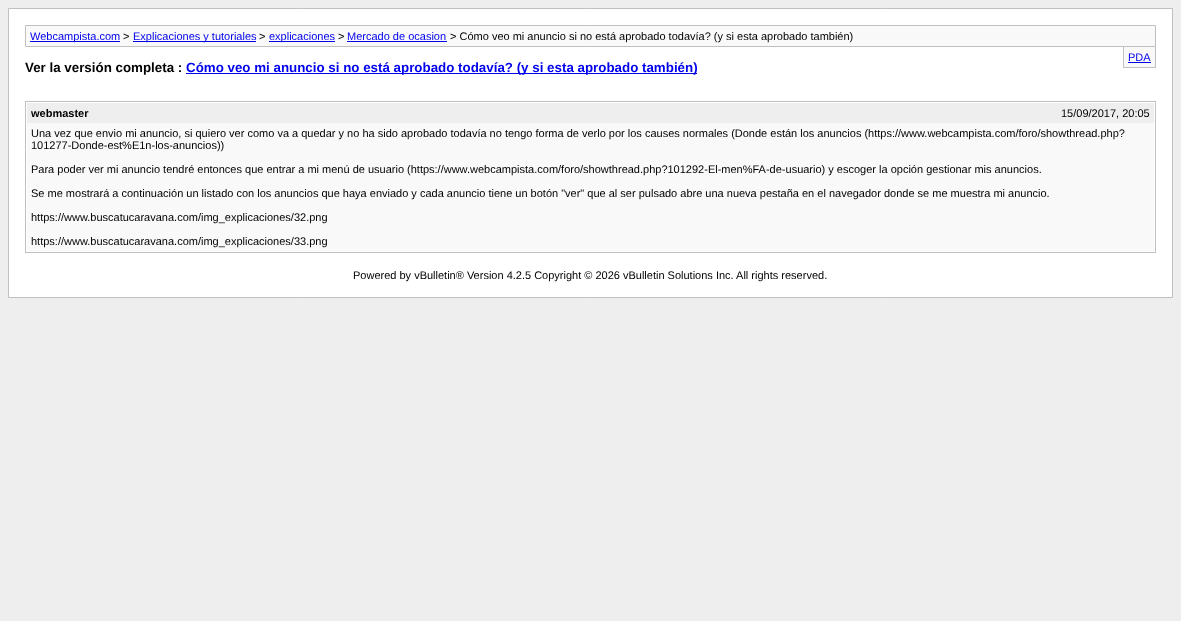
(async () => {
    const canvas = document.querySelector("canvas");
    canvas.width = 1181;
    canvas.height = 621;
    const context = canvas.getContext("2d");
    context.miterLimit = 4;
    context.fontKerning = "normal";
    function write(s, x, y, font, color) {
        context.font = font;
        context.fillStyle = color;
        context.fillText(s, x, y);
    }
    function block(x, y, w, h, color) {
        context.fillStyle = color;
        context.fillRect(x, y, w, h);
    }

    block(0, 0, 1181, 621, "rgb(238, 238, 238)");
    context.fillStyle = "rgb(255, 255, 255)";
    context.beginPath();
    context.rect(8.5, 8.5, 1164, 289);
    context.fill();
    context.strokeStyle = "rgb(192, 192, 192)";
    context.stroke();
    context.fillStyle = "rgb(249, 249, 249)";
    context.beginPath();
    context.rect(25.5, 25.5, 1130, 21);
    context.fill();
    context.stroke();
    block(30, 41, 90, 1, "rgb(0, 0, 238)");
    write("Webcampista.com", 30, 40, "11px Liberation Sans", "rgb(0, 0, 238)");
    write(">", 123, 40, "11px Liberation Sans", "rgb(0, 0, 0)");
    block(133, 41, 123, 1, "rgb(0, 0, 238)");
    write("Explicaciones y tutoriales", 133, 40, "11px Liberation Sans", "rgb(0, 0, 238)");
    write(">", 259, 40, "11px Liberation Sans", "rgb(0, 0, 0)");
    block(269, 41, 66, 1, "rgb(0, 0, 238)");
    write("explicaciones", 269, 40, "11px Liberation Sans", "rgb(0, 0, 238)");
    write(">", 338, 40, "11px Liberation Sans", "rgb(0, 0, 0)");
    write("Mercado de ocasion", 347, 40, "11px Liberation Sans", "rgb(0, 0, 238)");
    block(347, 41, 100, 1, "rgb(0, 0, 238)");
    write("> Cómo veo mi anuncio si no está aprobado todavía? (y si esta aprobado también)", 450, 40, "11px Liberation Sans", "rgb(0, 0, 0)");
    block(1124, 47, 31, 20, "rgb(249, 249, 249)");
    block(1155, 47, 1, 21, "rgb(192, 192, 192)");
    block(1123, 67, 33, 1, "rgb(192, 192, 192)");
    block(1123, 47, 1, 21, "rgb(192, 192, 192)");
    write("PDA", 1128, 61, "11px Liberation Sans", "rgb(0, 0, 238)");
    block(1128, 62, 23, 1, "rgb(0, 0, 238)");
    write("Ver la versión completa :", 25, 72, "bold 13.35px Liberation Sans", "rgb(0, 0, 0)");
    block(186, 73, 511, 1, "rgb(0, 0, 238)");
    write("Cómo veo mi anuncio si no está aprobado todavía? (y si esta aprobado también)", 186, 72, "bold 13.35px Liberation Sans", "rgb(0, 0, 238)");
    context.strokeRect(25.5, 101.5, 1130, 151);
    block(27, 103, 1127, 20, "rgb(238, 238, 238)");
    write("webmaster", 31, 117, "bold 11px Liberation Sans", "rgb(0, 0, 0)");
    write("15/09/2017, 20:05", 1061, 117, "11px Liberation Sans", "rgb(0, 0, 0)");
    block(27, 123, 1127, 128, "rgb(249, 249, 249)");
    write("Una vez que envio mi anuncio, si quiero ver como va a quedar y no ha sido aprobado todavía no tengo forma de verlo por los causes normales (Donde están los anuncios (https://www.webcampista.com/foro/showthread.php?", 31, 137, "11px Liberation Sans", "rgb(0, 0, 0)");
    write("101277-Donde-est%E1n-los-anuncios))", 31, 149, "11px Liberation Sans", "rgb(0, 0, 0)");
    write("Para poder ver mi anuncio tendré entonces que entrar a mi menú de usuario (https://www.webcampista.com/foro/showthread.php?101292-El-men%FA-de-usuario) y escoger la opción gestionar mis anuncios.", 31, 173, "11px Liberation Sans", "rgb(0, 0, 0)");
    write("Se me mostrará a continuación un listado con los anuncios que haya enviado y cada anuncio tiene un botón \"ver\" que al ser pulsado abre una nueva pestaña en el navegador donde se me muestra mi anuncio.", 31, 197, "11px Liberation Sans", "rgb(0, 0, 0)");
    write("https://www.buscatucaravana.com/img_explicaciones/32.png", 31, 221, "11px Liberation Sans", "rgb(0, 0, 0)");
    write("https://www.buscatucaravana.com/img_explicaciones/33.png", 31, 245, "11px Liberation Sans", "rgb(0, 0, 0)");
    write("Powered by vBulletin® Version 4.2.5 Copyright © 2026 vBulletin Solutions Inc. All rights reserved.", 353, 279, "11px Liberation Sans", "rgb(0, 0, 0)");
})();
